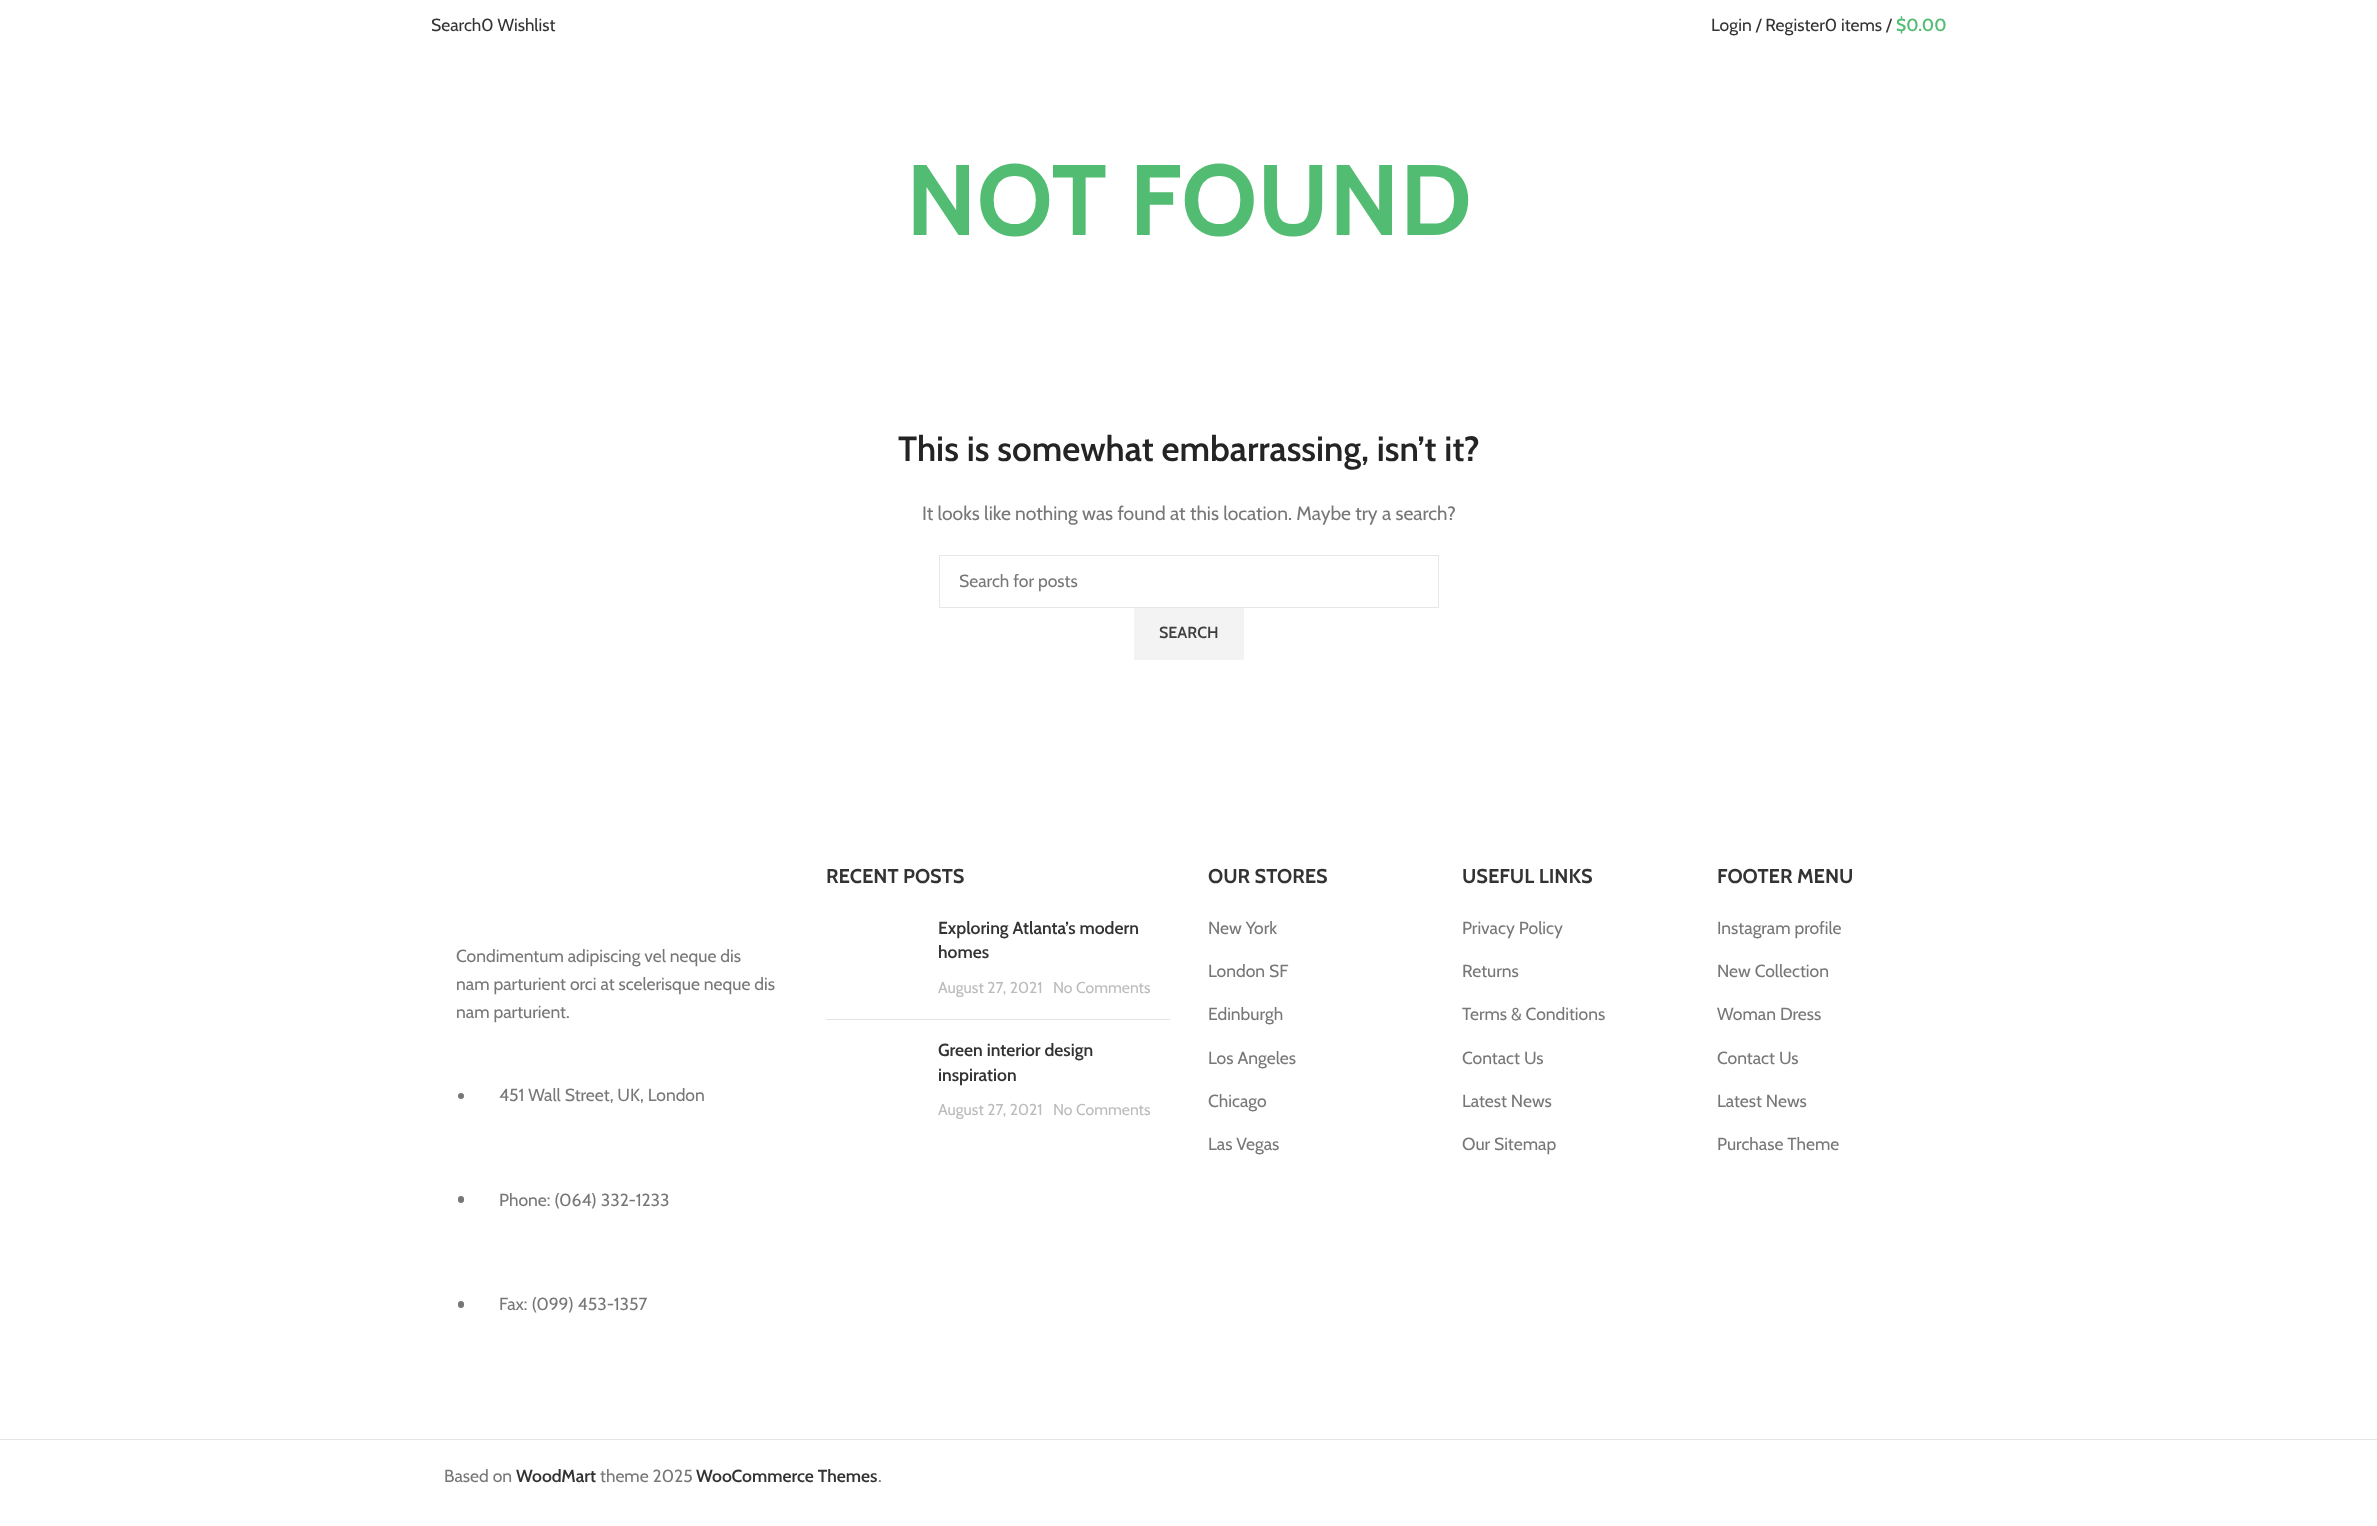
(async () => {
    const canvas = document.querySelector("canvas");
    canvas.width = 2377;
    canvas.height = 1526;
    const context = canvas.getContext("2d");
    context.miterLimit = 4;
    context.fontKerning = "normal";
    function write(s, x, y, font, color) {
        context.font = font;
        context.fillStyle = color;
        context.fillText(s, x, y);
    }
    function block(x, y, w, h, color) {
        context.fillStyle = color;
        context.fillRect(x, y, w, h);
    }
    function card(x, y, w, h, r, color) {
        context.fillStyle = color;
        context.beginPath();
        context.roundRect(x, y, w, h, r);
        context.fill();
    }

    block(0, 0, 2377, 1526, "rgb(255, 255, 255)");
    write("Search0 Wishlist", 431, 31, "17.5px Cabin", "rgb(51, 51, 51)");
    write("Login / Register0 items /", 1711, 31, "17.5px Cabin", "rgb(51, 51, 51)");
    write("$0.00", 1896, 31, "600 17.5px Cabin", "rgb(82, 189, 114)");
    write("NOT FOUND", 906, 235, "bold 100px Cabin", "rgb(82, 189, 114)");
    write("This is somewhat embarrassing, isn’t it?", 898, 461, "600 35px Cabin", "rgb(36, 36, 36)");
    write("It looks like nothing was found at this location. Maybe try a search?", 922, 520, "19.25px Cabin", "rgb(119, 119, 119)");
    context.strokeStyle = "rgb(230, 230, 230)";
    context.strokeRect(939.5, 555.5, 499, 52);
    write("Search for posts", 959, 587, "17.5px Cabin", "rgb(119, 119, 119)");
    block(1134, 608, 110, 52, "rgb(243, 243, 243)");
    write("SEARCH", 1159, 638, "600 16px Cabin", "rgb(62, 62, 62)");
    write("Condimentum adipiscing vel neque dis", 456, 962, "17.5px Cabin", "rgb(119, 119, 119)");
    write("nam parturient orci at scelerisque neque dis", 456, 990, "17.5px Cabin", "rgb(119, 119, 119)");
    write("nam parturient.", 456, 1018, "17.5px Cabin", "rgb(119, 119, 119)");
    context.beginPath();
    context.arc(461, 1096, 3, 0, Math.PI * 2);
    context.fill();
    write("451 Wall Street, UK, London", 499, 1101, "17.5px Cabin", "rgb(119, 119, 119)");
    card(458, 1196, 6, 7, 3, "rgb(119, 119, 119)");
    write("Phone: (064) 332-1233", 499, 1206, "17.5px Cabin", "rgb(119, 119, 119)");
    card(458, 1301, 6, 7, 3, "rgb(119, 119, 119)");
    write("Fax: (099) 453-1357", 499, 1310, "17.5px Cabin", "rgb(119, 119, 119)");
    write("RECENT POSTS", 826, 883, "bold 20px Cabin", "rgb(51, 51, 51)");
    block(826, 1019, 344, 1, "rgb(228, 228, 228)");
    write("Exploring Atlanta’s modern", 938, 934, "600 17.5px Cabin", "rgb(51, 51, 51)");
    write("homes", 938, 958, "600 17.5px Cabin", "rgb(51, 51, 51)");
    write("August 27, 2021", 938, 993, "15.75px Cabin", "rgb(187, 187, 187)");
    write("No Comments", 1053, 993, "15.75px Cabin", "rgb(187, 187, 187)");
    write("Green interior design", 938, 1056, "600 17.5px Cabin", "rgb(51, 51, 51)");
    write("inspiration", 938, 1081, "600 17.5px Cabin", "rgb(51, 51, 51)");
    write("August 27, 2021", 938, 1115, "15.75px Cabin", "rgb(187, 187, 187)");
    write("No Comments", 1053, 1115, "15.75px Cabin", "rgb(187, 187, 187)");
    write("OUR STORES", 1208, 883, "bold 20px Cabin", "rgb(51, 51, 51)");
    write("New York", 1208, 934, "17.5px Cabin", "rgb(119, 119, 119)");
    write("London SF", 1208, 977, "17.5px Cabin", "rgb(119, 119, 119)");
    write("Edinburgh", 1208, 1020, "17.5px Cabin", "rgb(119, 119, 119)");
    write("Los Angeles", 1208, 1064, "17.5px Cabin", "rgb(119, 119, 119)");
    write("Chicago", 1208, 1107, "17.5px Cabin", "rgb(119, 119, 119)");
    write("Las Vegas", 1208, 1150, "17.5px Cabin", "rgb(119, 119, 119)");
    write("USEFUL LINKS", 1462, 883, "bold 20px Cabin", "rgb(51, 51, 51)");
    write("Privacy Policy", 1462, 934, "17.5px Cabin", "rgb(119, 119, 119)");
    write("Returns", 1462, 977, "17.5px Cabin", "rgb(119, 119, 119)");
    write("Terms & Conditions", 1462, 1020, "17.5px Cabin", "rgb(119, 119, 119)");
    write("Contact Us", 1462, 1064, "17.5px Cabin", "rgb(119, 119, 119)");
    write("Latest News", 1462, 1107, "17.5px Cabin", "rgb(119, 119, 119)");
    write("Our Sitemap", 1462, 1150, "17.5px Cabin", "rgb(119, 119, 119)");
    write("FOOTER MENU", 1717, 883, "bold 20px Cabin", "rgb(51, 51, 51)");
    write("Instagram profile", 1717, 934, "17.5px Cabin", "rgb(119, 119, 119)");
    write("New Collection", 1717, 977, "17.5px Cabin", "rgb(119, 119, 119)");
    write("Woman Dress", 1717, 1020, "17.5px Cabin", "rgb(119, 119, 119)");
    write("Contact Us", 1717, 1064, "17.5px Cabin", "rgb(119, 119, 119)");
    write("Latest News", 1717, 1107, "17.5px Cabin", "rgb(119, 119, 119)");
    write("Purchase Theme", 1717, 1150, "17.5px Cabin", "rgb(119, 119, 119)");
    block(0, 1439, 2377, 1, "rgb(228, 228, 228)");
    write("Based on", 444, 1482, "17.5px Cabin", "rgb(119, 119, 119)");
    write("WoodMart", 516, 1482, "600 17.5px Cabin", "rgb(51, 51, 51)");
    write("theme 2025", 600, 1482, "17.5px Cabin", "rgb(119, 119, 119)");
    write("WooCommerce Themes", 696, 1482, "600 17.5px Cabin", "rgb(51, 51, 51)");
    write(".", 878, 1482, "17.5px Cabin", "rgb(119, 119, 119)");
})();
